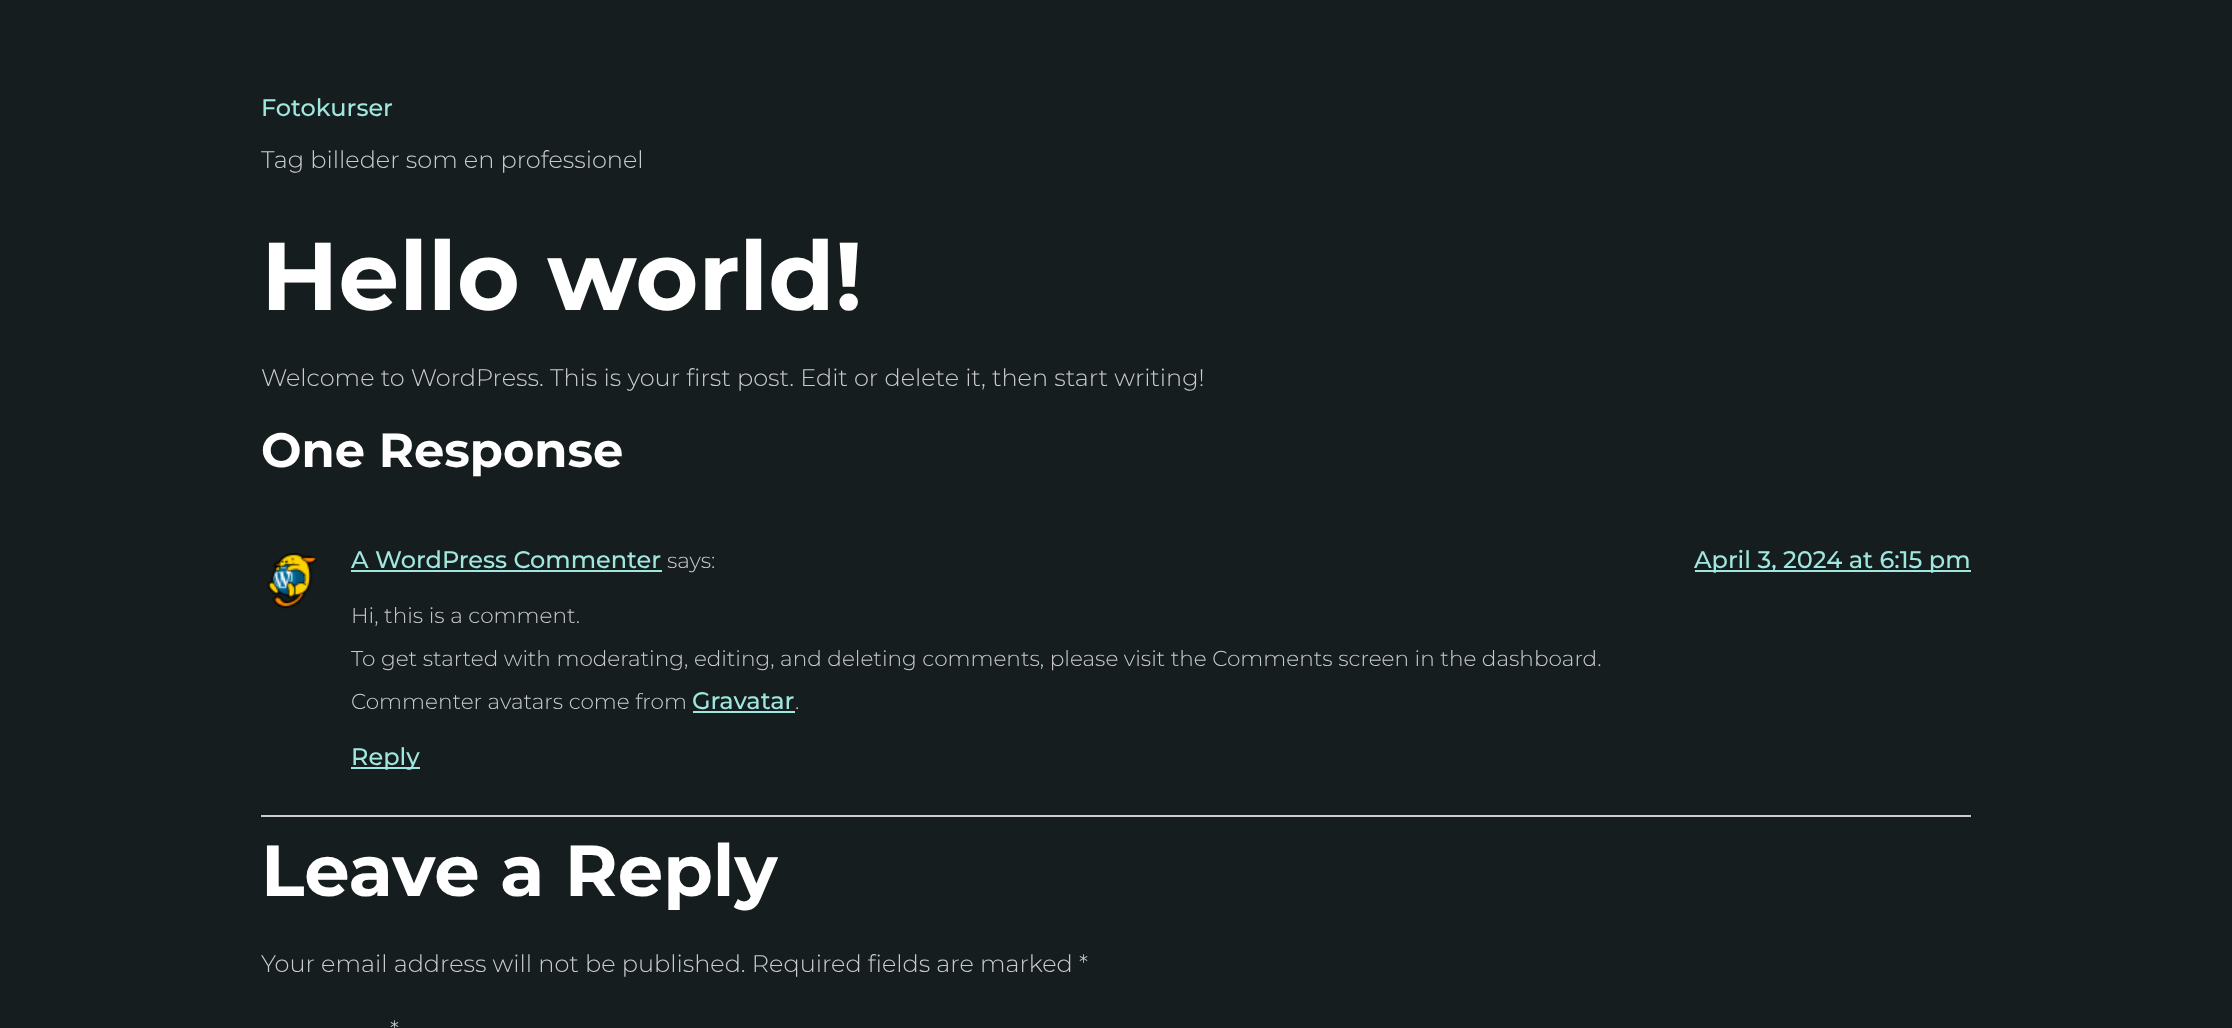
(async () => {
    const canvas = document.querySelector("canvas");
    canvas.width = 2232;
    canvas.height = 1028;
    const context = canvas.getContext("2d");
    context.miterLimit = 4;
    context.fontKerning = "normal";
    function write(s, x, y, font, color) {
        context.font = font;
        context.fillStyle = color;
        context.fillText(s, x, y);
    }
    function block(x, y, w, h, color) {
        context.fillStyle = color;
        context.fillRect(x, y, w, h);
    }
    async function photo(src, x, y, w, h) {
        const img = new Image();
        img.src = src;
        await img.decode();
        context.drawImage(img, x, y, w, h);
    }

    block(0, 0, 2232, 1028, "rgb(22, 29, 30)");
    write("Fotokurser", 261, 116, "500 24px Montserrat", "rgb(159, 231, 223)");
    write("Tag billeder som en professionel", 261, 168, "300 24px Montserrat", "rgb(203, 203, 205)");
    write("Hello world!", 261, 310, "bold 96px Montserrat", "rgb(255, 255, 255)");
    write("Welcome to WordPress. This is your first post. Edit or delete it, then start writing!", 261, 386, "300 24px Montserrat", "rgb(203, 203, 205)");
    write("One Response", 261, 467, "bold 48px Montserrat", "rgb(255, 255, 255)");
    block(261, 815, 1710, 2, "rgb(204, 204, 204)");
    await photo("media/1.png", 267, 553, 50, 56);
    write("A WordPress Commenter", 351, 568, "500 24px Montserrat", "rgb(159, 231, 223)");
    block(351, 570, 311, 2, "rgb(159, 231, 223)");
    write("says:", 667, 568, "300 21.6px Montserrat", "rgb(203, 203, 205)");
    block(1695, 570, 276, 2, "rgb(159, 231, 223)");
    write("April 3, 2024 at 6:15 pm", 1694, 568, "500 24px Montserrat", "rgb(159, 231, 223)");
    write("Hi, this is a comment.", 351, 623, "300 21.6px Montserrat", "rgb(203, 203, 205)");
    write("To get started with moderating, editing, and deleting comments, please visit the Comments screen in the dashboard.", 351, 666, "300 21.6px Montserrat", "rgb(203, 203, 205)");
    write("Commenter avatars come from", 351, 709, "300 21.6px Montserrat", "rgb(203, 203, 205)");
    write("Gravatar", 692, 709, "500 24px Montserrat", "rgb(159, 231, 223)");
    block(693, 711, 102, 2, "rgb(159, 231, 223)");
    write(".", 795, 709, "300 21.6px Montserrat", "rgb(203, 203, 205)");
    block(351, 767, 69, 2, "rgb(159, 231, 223)");
    write("Reply", 351, 765, "500 24px Montserrat", "rgb(159, 231, 223)");
    write("Leave a Reply", 261, 896, "bold 72px Montserrat", "rgb(255, 255, 255)");
    write("Your email address will not be published. Required fields are marked *", 261, 972, "300 24px Montserrat", "rgb(203, 203, 205)");
    write("*", 390, 1038, "300 24px Montserrat", "rgb(203, 203, 205)");
})();
